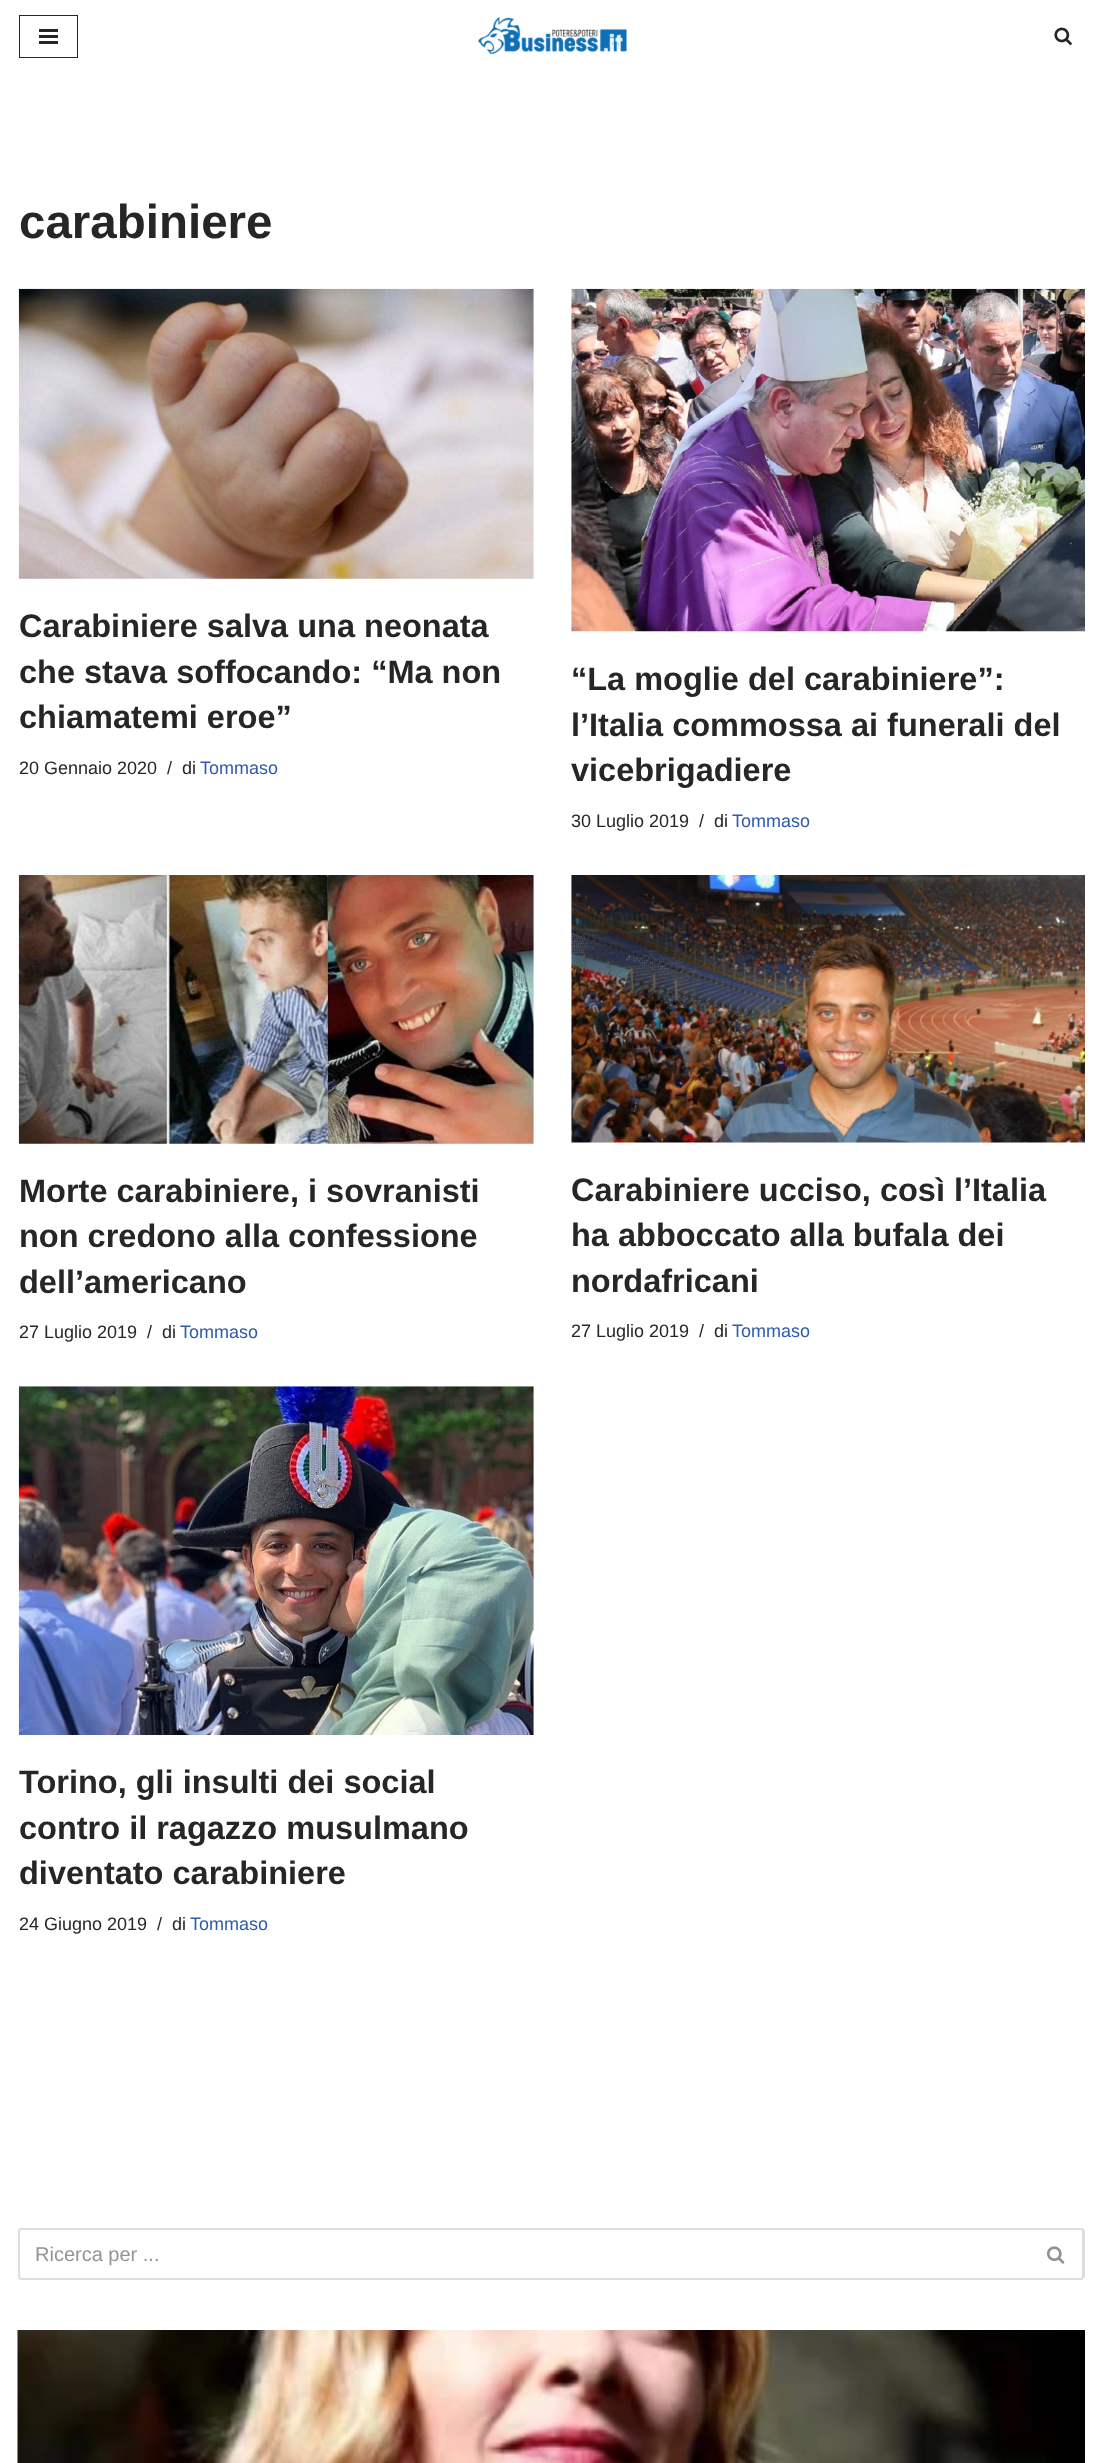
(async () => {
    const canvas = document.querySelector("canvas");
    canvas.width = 1103;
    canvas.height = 2463;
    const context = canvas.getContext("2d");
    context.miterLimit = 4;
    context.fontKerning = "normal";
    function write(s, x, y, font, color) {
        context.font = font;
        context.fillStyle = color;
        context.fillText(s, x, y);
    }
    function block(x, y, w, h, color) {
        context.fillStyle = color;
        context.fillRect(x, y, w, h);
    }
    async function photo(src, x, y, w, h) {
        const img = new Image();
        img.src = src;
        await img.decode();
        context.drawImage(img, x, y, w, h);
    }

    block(0, 0, 1103, 2463, "rgb(255, 255, 255)");
    context.strokeStyle = "rgb(39, 38, 38)";
    context.strokeRect(19.5, 15.5, 58, 42);
    block(39, 29, 19, 3, "rgb(39, 38, 38)");
    block(39, 35, 19, 3, "rgb(39, 38, 38)");
    block(39, 41, 19, 3, "rgb(39, 38, 38)");
    await photo("media/1.png", 478, 17, 149, 37);
    await photo("media/2.png", 1054, 27, 18, 18);
    write("carabiniere", 19, 238, "bold 47.5px Liberation Sans", "rgb(39, 38, 38)");
    await photo("media/3.png", 18, 288, 516, 291);
    write("Carabiniere salva una neonata", 19, 637, "bold 32.5px Liberation Sans", "rgb(39, 38, 38)");
    write("che stava soffocando: “Ma non", 19, 683, "bold 32.5px Liberation Sans", "rgb(39, 38, 38)");
    write("chiamatemi eroe”", 19, 728, "bold 32.5px Liberation Sans", "rgb(39, 38, 38)");
    write("20 Gennaio 2020", 19, 774, "18px Liberation Sans", "rgb(39, 38, 38)");
    write("/", 167, 774, "18px Liberation Sans", "rgb(39, 38, 38)");
    write("di", 182, 774, "18px Liberation Sans", "rgb(39, 38, 38)");
    write("Tommaso", 200, 774, "18px Liberation Sans", "rgb(47, 90, 174)");
    await photo("media/4.png", 571, 288, 514, 344);
    write("“La moglie del carabiniere”:", 571, 690, "bold 32.5px Liberation Sans", "rgb(39, 38, 38)");
    write("l’Italia commossa ai funerali del", 571, 736, "bold 32.5px Liberation Sans", "rgb(39, 38, 38)");
    write("vicebrigadiere", 571, 781, "bold 32.5px Liberation Sans", "rgb(39, 38, 38)");
    write("30 Luglio 2019", 571, 827, "18px Liberation Sans", "rgb(39, 38, 38)");
    write("/", 699, 827, "18px Liberation Sans", "rgb(39, 38, 38)");
    write("di", 714, 827, "18px Liberation Sans", "rgb(39, 38, 38)");
    write("Tommaso", 732, 827, "18px Liberation Sans", "rgb(47, 90, 174)");
    await photo("media/5.png", 18, 875, 516, 269);
    write("Morte carabiniere, i sovranisti", 19, 1202, "bold 32.5px Liberation Sans", "rgb(39, 38, 38)");
    write("non credono alla confessione", 19, 1247, "bold 32.5px Liberation Sans", "rgb(39, 38, 38)");
    write("dell’americano", 19, 1293, "bold 32.5px Liberation Sans", "rgb(39, 38, 38)");
    write("27 Luglio 2019", 19, 1338, "18px Liberation Sans", "rgb(39, 38, 38)");
    write("/", 147, 1338, "18px Liberation Sans", "rgb(39, 38, 38)");
    write("di", 162, 1338, "18px Liberation Sans", "rgb(39, 38, 38)");
    write("Tommaso", 180, 1338, "18px Liberation Sans", "rgb(47, 90, 174)");
    await photo("media/6.png", 571, 875, 514, 268);
    write("Carabiniere ucciso, così l’Italia", 571, 1201, "bold 32.5px Liberation Sans", "rgb(39, 38, 38)");
    write("ha abboccato alla bufala dei", 571, 1246, "bold 32.5px Liberation Sans", "rgb(39, 38, 38)");
    write("nordafricani", 571, 1292, "bold 32.5px Liberation Sans", "rgb(39, 38, 38)");
    write("27 Luglio 2019", 571, 1337, "18px Liberation Sans", "rgb(39, 38, 38)");
    write("/", 699, 1337, "18px Liberation Sans", "rgb(39, 38, 38)");
    write("di", 714, 1337, "18px Liberation Sans", "rgb(39, 38, 38)");
    write("Tommaso", 732, 1337, "18px Liberation Sans", "rgb(47, 90, 174)");
    await photo("media/7.png", 18, 1386, 516, 349);
    write("Torino, gli insulti dei social", 19, 1793, "bold 32.5px Liberation Sans", "rgb(39, 38, 38)");
    write("contro il ragazzo musulmano", 19, 1839, "bold 32.5px Liberation Sans", "rgb(39, 38, 38)");
    write("diventato carabiniere", 19, 1884, "bold 32.5px Liberation Sans", "rgb(39, 38, 38)");
    write("24 Giugno 2019", 19, 1930, "18px Liberation Sans", "rgb(39, 38, 38)");
    write("/", 157, 1930, "18px Liberation Sans", "rgb(39, 38, 38)");
    write("di", 172, 1930, "18px Liberation Sans", "rgb(39, 38, 38)");
    write("Tommaso", 190, 1930, "18px Liberation Sans", "rgb(47, 90, 174)");
    context.fillStyle = "rgb(221, 221, 221)";
    context.beginPath();
    context.moveTo(21, 2228);
    context.lineTo(1029, 2228);
    context.lineTo(1029, 2280);
    context.lineTo(21, 2280);
    context.bezierCurveTo(19, 2280, 18, 2278, 18, 2276);
    context.lineTo(18, 2231);
    context.bezierCurveTo(18, 2229, 19, 2228, 21, 2228);
    context.closePath();
    context.moveTo(21, 2230);
    context.lineTo(1029, 2230);
    context.lineTo(1029, 2278);
    context.lineTo(21, 2278);
    context.bezierCurveTo(21, 2278, 20, 2277, 20, 2276);
    context.lineTo(20, 2231);
    context.bezierCurveTo(20, 2231, 21, 2230, 21, 2230);
    context.closePath();
    context.fill("evenodd");
    write("Ricerca per ...", 35, 2261, "20px Liberation Sans", "rgb(147, 147, 147)");
    context.fillStyle = "rgb(221, 221, 221)";
    context.beginPath();
    context.moveTo(1029, 2228);
    context.lineTo(1081, 2228);
    context.bezierCurveTo(1083, 2228, 1085, 2229, 1085, 2231);
    context.lineTo(1085, 2276);
    context.bezierCurveTo(1085, 2278, 1083, 2280, 1081, 2280);
    context.lineTo(1029, 2280);
    context.closePath();
    context.moveTo(1029, 2230);
    context.lineTo(1081, 2230);
    context.bezierCurveTo(1082, 2230, 1082, 2231, 1082, 2231);
    context.lineTo(1082, 2276);
    context.bezierCurveTo(1082, 2277, 1082, 2278, 1081, 2278);
    context.lineTo(1029, 2278);
    context.closePath();
    context.fill("evenodd");
    await photo("media/8.png", 1046, 2246, 19, 18);
    await photo("media/9.png", 17, 2330, 1068, 133);
})();
